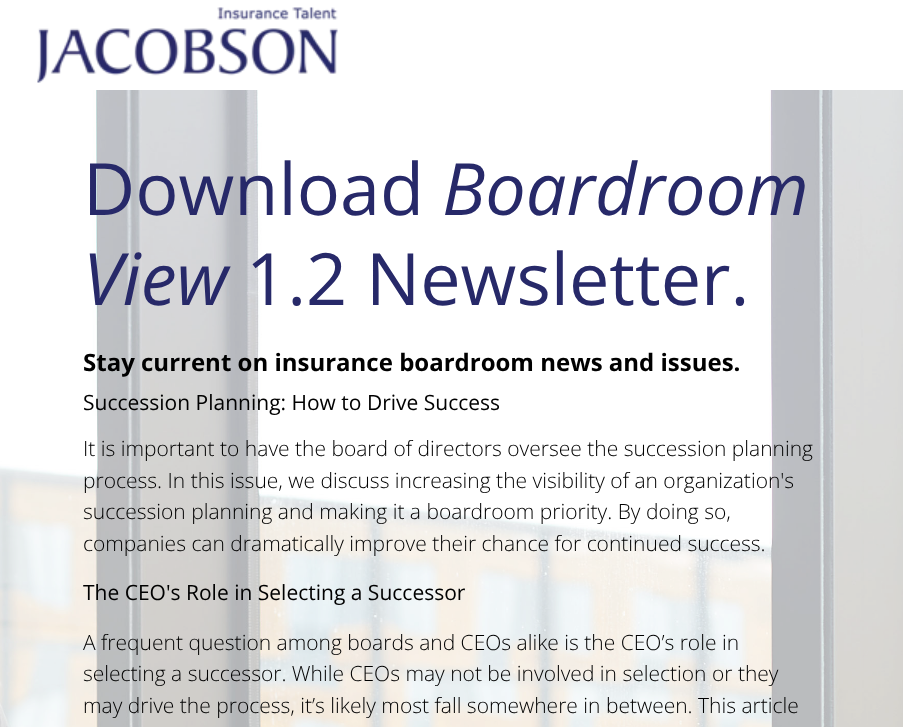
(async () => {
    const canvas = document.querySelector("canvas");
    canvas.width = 903;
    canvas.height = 727;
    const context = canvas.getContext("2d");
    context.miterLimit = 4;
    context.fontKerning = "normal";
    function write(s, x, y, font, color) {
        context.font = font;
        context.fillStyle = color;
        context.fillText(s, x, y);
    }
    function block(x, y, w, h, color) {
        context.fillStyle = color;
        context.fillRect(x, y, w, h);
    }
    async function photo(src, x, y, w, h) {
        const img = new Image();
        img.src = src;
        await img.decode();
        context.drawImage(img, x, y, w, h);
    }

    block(0, 0, 903, 727, "rgb(255, 255, 255)");
    await photo("media/1.png", 37, 7, 301, 76);
    await photo("media/2.png", 0, 90, 903, 637);
    write("Download", 83, 215, "72px Open Sans", "rgb(39, 41, 105)");
    write("Boardroom", 442, 215, "italic 72px Open Sans", "rgb(39, 41, 105)");
    write("View", 83, 305, "italic 72px Open Sans", "rgb(39, 41, 105)");
    write("1.2 Newsletter.", 246, 305, "72px Open Sans", "rgb(39, 41, 105)");
    write("Stay current on insurance boardroom news and issues.", 83, 371, "bold 24px Open Sans", "rgb(0, 0, 0)");
    write("Succession Planning: How to Drive Success", 83, 410, "21px Open Sans", "rgb(0, 0, 0)");
    write("It is important to have the board of directors oversee the succession planning", 83, 456, "300 21px Open Sans", "rgb(0, 0, 0)");
    write("process. In this issue, we discuss increasing the visibility of an organization's", 83, 488, "300 21px Open Sans", "rgb(0, 0, 0)");
    write("succession planning and making it a boardroom priority. By doing so,", 83, 519, "300 21px Open Sans", "rgb(0, 0, 0)");
    write("companies can dramatically improve their chance for continued success.", 83, 551, "300 21px Open Sans", "rgb(0, 0, 0)");
    write("The CEO's Role in Selecting a Successor", 83, 600, "21px Open Sans", "rgb(0, 0, 0)");
    write("A frequent question among boards and CEOs alike is the CEO’s role in", 83, 650, "300 21px Open Sans", "rgb(0, 0, 0)");
    write("selecting a successor. While CEOs may not be involved in selection or they", 83, 681, "300 21px Open Sans", "rgb(0, 0, 0)");
    write("may drive the process, it’s likely most fall somewhere in between. This article", 83, 713, "300 21px Open Sans", "rgb(0, 0, 0)");
})();
